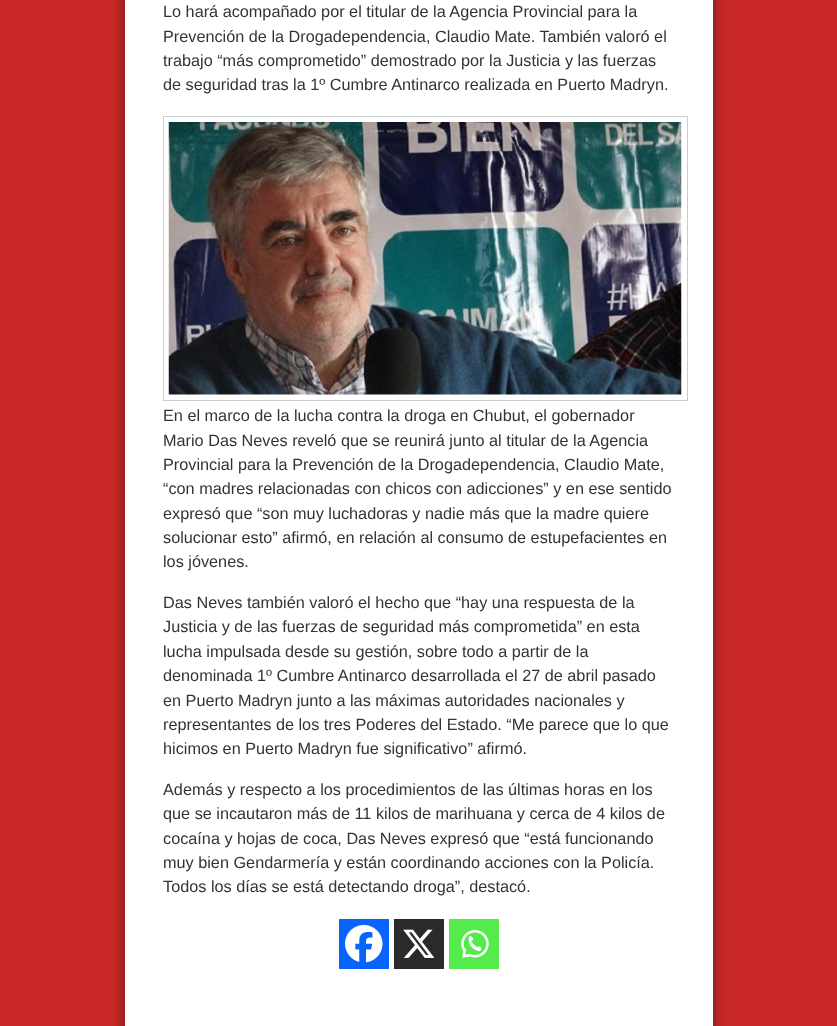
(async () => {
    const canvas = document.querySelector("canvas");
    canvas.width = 837;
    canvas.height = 1026;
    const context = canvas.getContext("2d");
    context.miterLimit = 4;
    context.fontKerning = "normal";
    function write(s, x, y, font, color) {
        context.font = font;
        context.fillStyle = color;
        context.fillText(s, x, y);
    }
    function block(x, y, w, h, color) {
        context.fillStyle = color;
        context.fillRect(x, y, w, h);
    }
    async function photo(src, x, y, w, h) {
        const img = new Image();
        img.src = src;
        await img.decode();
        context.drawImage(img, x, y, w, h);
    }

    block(0, 0, 837, 1026, "rgb(200, 40, 40)");
    context.fillStyle = "rgba(0, 0, 0, 0.5)";
    context.filter = "blur(6px)";
    context.beginPath();
    context.rect(125, -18, 588, 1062);
    context.fill();
    context.filter = "none";
    block(125, 0, 588, 1026, "rgb(255, 255, 255)");
    write("Lo hará acompañado por el titular de la Agencia Provincial para la", 163, 17, "16.25px Liberation Sans", "rgb(51, 51, 51)");
    write("Prevención de la Drogadependencia, Claudio Mate. También valoró el", 163, 42, "16.25px Liberation Sans", "rgb(51, 51, 51)");
    write("trabajo “más comprometido” demostrado por la Justicia y las fuerzas", 163, 66, "16.25px Liberation Sans", "rgb(51, 51, 51)");
    write("de seguridad tras la 1º Cumbre Antinarco realizada en Puerto Madryn.", 163, 90, "16.25px Liberation Sans", "rgb(51, 51, 51)");
    context.strokeStyle = "rgb(203, 205, 204)";
    context.strokeRect(163.5, 116.5, 524, 284);
    await photo("media/1.png", 168, 122, 514, 273);
    write("En el marco de la lucha contra la droga en Chubut, el gobernador", 163, 421, "16.25px Liberation Sans", "rgb(51, 51, 51)");
    write("Mario Das Neves reveló que se reunirá junto al titular de la Agencia", 163, 446, "16.25px Liberation Sans", "rgb(51, 51, 51)");
    write("Provincial para la Prevención de la Drogadependencia, Claudio Mate,", 163, 470, "16.25px Liberation Sans", "rgb(51, 51, 51)");
    write("“con madres relacionadas con chicos con adicciones” y en ese sentido", 163, 494, "16.25px Liberation Sans", "rgb(51, 51, 51)");
    write("expresó que “son muy luchadoras y nadie más que la madre quiere", 163, 519, "16.25px Liberation Sans", "rgb(51, 51, 51)");
    write("solucionar esto” afirmó, en relación al consumo de estupefacientes en", 163, 543, "16.25px Liberation Sans", "rgb(51, 51, 51)");
    write("los jóvenes.", 163, 567, "16.25px Liberation Sans", "rgb(51, 51, 51)");
    write("Das Neves también valoró el hecho que “hay una respuesta de la", 163, 608, "16.25px Liberation Sans", "rgb(51, 51, 51)");
    write("Justicia y de las fuerzas de seguridad más comprometida” en esta", 163, 632, "16.25px Liberation Sans", "rgb(51, 51, 51)");
    write("lucha impulsada desde su gestión, sobre todo a partir de la", 163, 657, "16.25px Liberation Sans", "rgb(51, 51, 51)");
    write("denominada 1º Cumbre Antinarco desarrollada el 27 de abril pasado", 163, 681, "16.25px Liberation Sans", "rgb(51, 51, 51)");
    write("en Puerto Madryn junto a las máximas autoridades nacionales y", 163, 706, "16.25px Liberation Sans", "rgb(51, 51, 51)");
    write("representantes de los tres Poderes del Estado. “Me parece que lo que", 163, 730, "16.25px Liberation Sans", "rgb(51, 51, 51)");
    write("hicimos en Puerto Madryn fue significativo” afirmó.", 163, 754, "16.25px Liberation Sans", "rgb(51, 51, 51)");
    write("Además y respecto a los procedimientos de las últimas horas en los", 163, 795, "16.25px Liberation Sans", "rgb(51, 51, 51)");
    write("que se incautaron más de 11 kilos de marihuana y cerca de 4 kilos de", 163, 819, "16.25px Liberation Sans", "rgb(51, 51, 51)");
    write("cocaína y hojas de coca, Das Neves expresó que “está funcionando", 163, 844, "16.25px Liberation Sans", "rgb(51, 51, 51)");
    write("muy bien Gendarmería y están coordinando acciones con la Policía.", 163, 868, "16.25px Liberation Sans", "rgb(51, 51, 51)");
    write("Todos los días se está detectando droga”, destacó.", 163, 892, "16.25px Liberation Sans", "rgb(51, 51, 51)");
    block(339, 919, 50, 50, "rgb(7, 101, 254)");
    await photo("media/2.png", 345, 925, 38, 38);
    block(394, 919, 50, 50, "rgb(42, 42, 42)");
    await photo("media/3.png", 403, 929, 32, 29);
    block(449, 919, 50, 50, "rgb(85, 235, 76)");
    await photo("media/4.png", 461, 930, 28, 28);
})();
